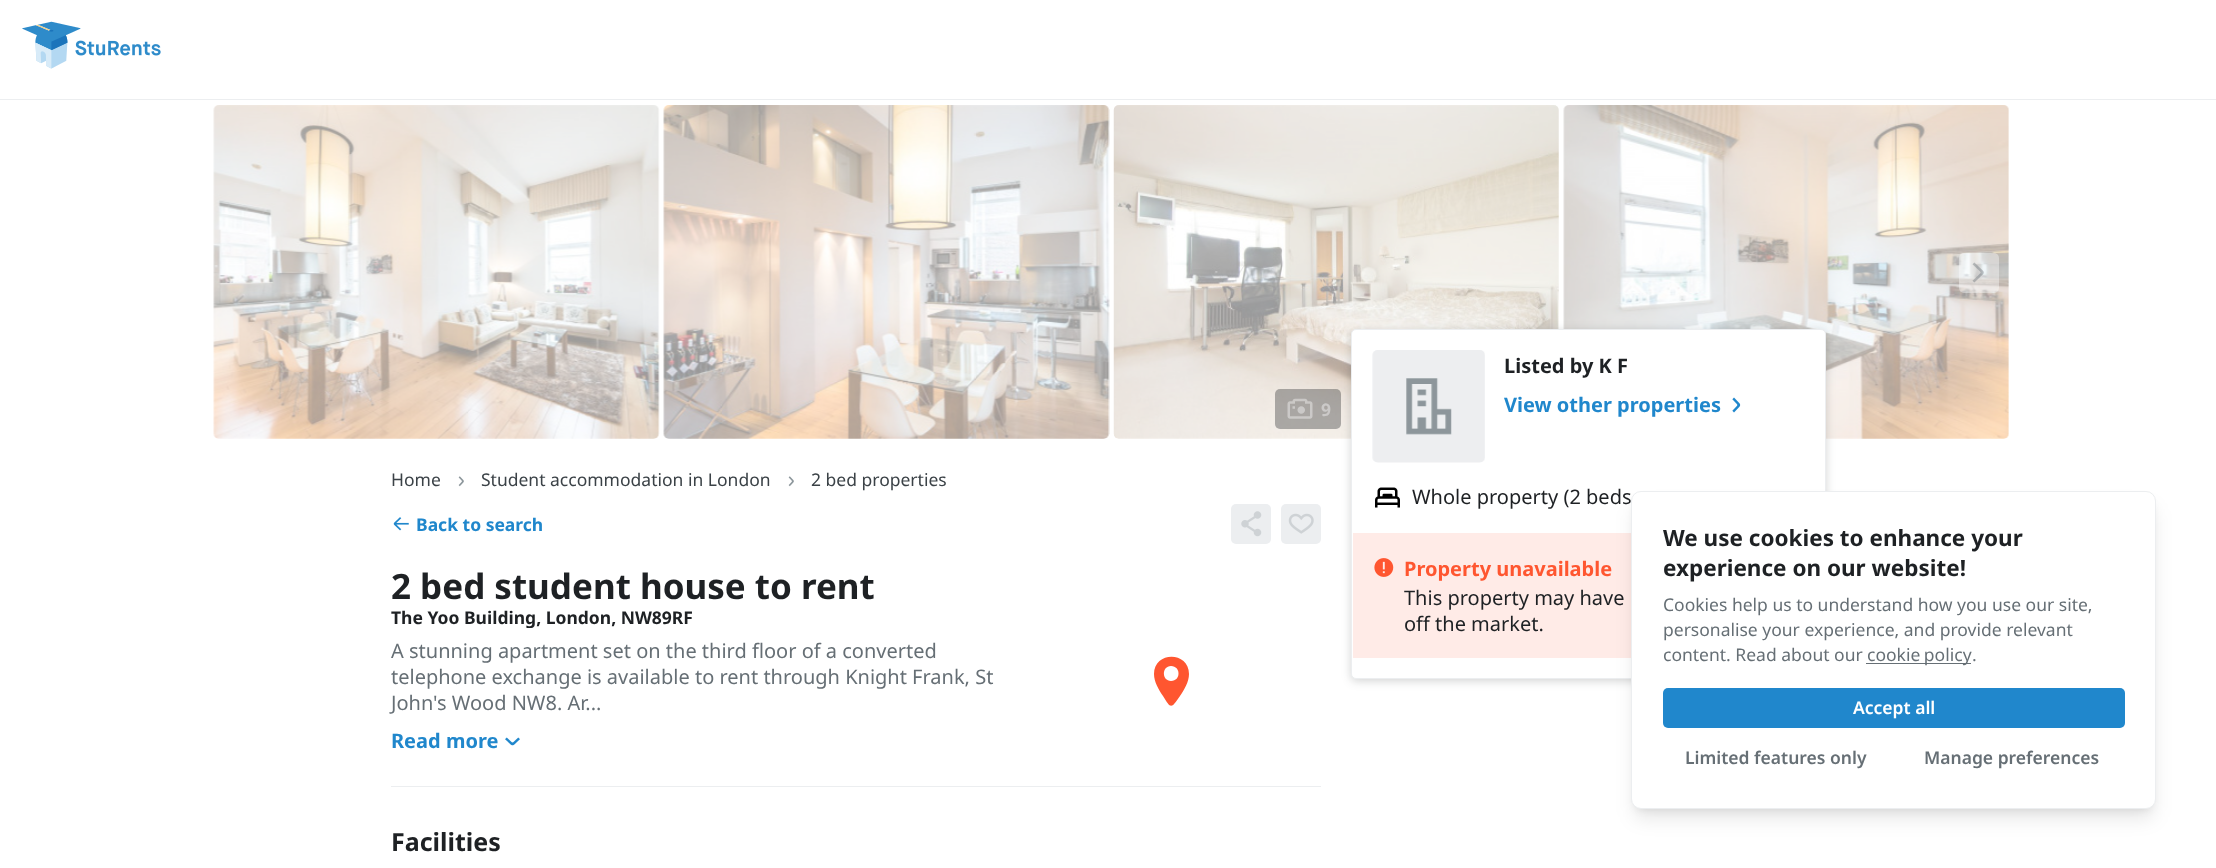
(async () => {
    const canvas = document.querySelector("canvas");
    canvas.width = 2216;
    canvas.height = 868;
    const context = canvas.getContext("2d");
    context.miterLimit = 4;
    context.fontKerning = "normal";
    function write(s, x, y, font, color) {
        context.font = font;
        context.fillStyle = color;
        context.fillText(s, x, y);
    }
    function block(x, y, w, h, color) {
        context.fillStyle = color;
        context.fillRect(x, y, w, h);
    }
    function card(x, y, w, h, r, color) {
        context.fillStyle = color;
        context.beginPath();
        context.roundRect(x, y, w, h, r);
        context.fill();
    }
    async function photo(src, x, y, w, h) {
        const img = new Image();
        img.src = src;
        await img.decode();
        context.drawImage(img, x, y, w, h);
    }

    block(0, 0, 2216, 868, "rgb(255, 255, 255)");
    block(0, 99, 2216, 1, "rgb(236, 238, 240)");
    await photo("media/1.png", 22, 21, 139, 48);
    write("Home", 391, 486, "17.5px Noto Sans", "rgb(59, 66, 71)");
    await photo("media/2.png", 458, 476, 6, 11);
    write("Student accommodation in London", 481, 486, "17.5px Noto Sans", "rgb(59, 66, 71)");
    await photo("media/2.png", 788, 476, 6, 11);
    write("2 bed properties", 811, 486, "17.5px Noto Sans", "rgb(59, 66, 71)");
    await photo("media/3.png", 393, 517, 16, 14);
    write("Back to search", 416, 531, "bold 17.5px Noto Sans", "rgb(32, 135, 204)");
    card(1231, 504, 40, 40, 5, "rgb(236, 238, 240)");
    await photo("media/4.png", 1241, 511, 21, 26);
    card(1281, 504, 40, 40, 5, "rgb(236, 238, 240)");
    await photo("media/5.png", 1288, 513, 26, 21);
    write("2 bed student house to rent", 391, 599, "bold 35px Noto Sans", "rgb(30, 33, 36)");
    context.save();
    context.beginPath();
    context.rect(391, 564, 930, 64);
    context.clip();
    write("The Yoo Building, London, NW89RF", 391, 624, "bold 17.5px Noto Sans", "rgb(30, 33, 36)");
    context.restore();
    write("A stunning apartment set on the third floor of a converted", 391, 658, "20px Noto Sans", "rgb(102, 111, 117)");
    write("telephone exchange is available to rent through Knight Frank, St", 391, 684, "20px Noto Sans", "rgb(102, 111, 117)");
    write("John's Wood NW8. Ar...", 391, 710, "20px Noto Sans", "rgb(102, 111, 117)");
    write("Read more", 391, 748, "bold 20px Noto Sans", "rgb(32, 135, 204)");
    await photo("media/6.png", 505, 737, 15, 9);
    context.fillStyle = "rgb(255, 86, 48)";
    context.beginPath();
    context.moveTo(1154, 674);
    context.bezierCurveTo(1154, 651, 1189, 651, 1189, 674);
    context.bezierCurveTo(1189, 682, 1184, 690, 1180, 696);
    context.bezierCurveTo(1171, 709, 1171, 709, 1163, 696);
    context.bezierCurveTo(1159, 690, 1154, 682, 1154, 674);
    context.closePath();
    context.fill();
    context.fillStyle = "rgb(255, 255, 255)";
    context.beginPath();
    context.moveTo(1171, 681);
    context.bezierCurveTo(1181, 681, 1181, 666, 1171, 666);
    context.bezierCurveTo(1161.5, 666, 1161.5, 681, 1171, 681);
    context.closePath();
    context.fill();
    block(391, 786, 930, 1, "rgb(236, 238, 240)");
    write("Facilities", 391, 851, "bold 25px Noto Sans", "rgb(30, 33, 36)");
    await photo("media/13.png", 1113, 105, 446, 334);
    await photo("media/14.png", 1563, 105, 446, 334);
    card(1275, 389, 66, 40, 5, "rgba(30, 33, 36, 0.34)");
    context.fillStyle = "rgba(30, 33, 36, 0.2)";
    context.filter = "blur(5px)";
    context.beginPath();
    context.roundRect(1351, 331, 475, 350, 5);
    context.fill();
    context.filter = "none";
    context.fillStyle = "rgb(255, 255, 255)";
    context.beginPath();
    context.roundRect(1351.5, 329.5, 474, 349, 4.5);
    context.fill();
    context.strokeStyle = "rgb(236, 238, 240)";
    context.stroke();
    await photo("media/7.png", 1372, 350, 113, 113);
    write("Listed by K F", 1504, 373, "bold 20px Noto Sans", "rgb(30, 33, 36)");
    write("View other properties", 1504, 412, "bold 20px Noto Sans", "rgb(32, 135, 204)");
    await photo("media/8.png", 1732, 397, 9, 16);
    await photo("media/9.png", 1375, 487, 25, 21);
    write("Whole property (2 beds", 1412, 504, "20px Noto Sans", "rgb(30, 33, 36)");
    block(1353, 533, 278, 125, "rgb(255, 235, 231)");
    await photo("media/10.png", 1374, 558, 20, 19);
    write("Property unavailable", 1404, 576, "bold 20px Noto Sans", "rgb(255, 86, 48)");
    write("This property may have", 1404, 605, "20px Noto Sans", "rgb(30, 33, 36)");
    write("off the market.", 1404, 631, "20px Noto Sans", "rgb(30, 33, 36)");
    await photo("media/11.png", 213, 105, 447, 334);
    await photo("media/12.png", 663, 105, 447, 334);
    card(1959, 253, 40, 40, 5, "rgba(255, 255, 255, 0.4)");
    await photo("media/15.png", 1972, 262, 12, 21);
    await photo("media/16.png", 1287, 398, 26, 21);
    write("9", 1321, 416, "bold 17.5px Noto Sans", "rgb(203, 201, 200)");
    context.fillStyle = "rgba(0, 0, 0, 0.1)";
    context.filter = "blur(4px)";
    context.beginPath();
    context.roundRect(1636, 501, 515, 308, 5);
    context.fill();
    context.filter = "none";
    context.filter = "blur(9.5px)";
    context.beginPath();
    context.roundRect(1635, 508, 518, 310, 6);
    context.fill();
    context.filter = "none";
    context.fillStyle = "rgb(255, 255, 255)";
    context.beginPath();
    context.roundRect(1631.5, 491.5, 524, 317, 9.5);
    context.fill();
    context.stroke();
    write("We use cookies to enhance your", 1663, 546, "bold 22.5px Noto Sans", "rgb(30, 33, 36)");
    write("experience on our website!", 1663, 576, "bold 22.5px Noto Sans", "rgb(30, 33, 36)");
    write("Cookies help us to understand how you use our site,", 1663, 611, "17.5px Noto Sans", "rgb(102, 111, 117)");
    write("personalise your experience, and provide relevant", 1663, 636, "17.5px Noto Sans", "rgb(102, 111, 117)");
    write("content. Read about our", 1663, 661, "17.5px Noto Sans", "rgb(102, 111, 117)");
    block(1866, 663, 105, 1, "rgb(102, 111, 117)");
    context.wordSpacing = "-1px";
    write("cookie policy", 1867, 661, "17.5px Noto Sans", "rgb(102, 111, 117)");
    context.wordSpacing = "0px";
    write(".", 1972, 661, "17.5px Noto Sans", "rgb(102, 111, 117)");
    card(1663, 688, 462, 40, 5, "rgb(32, 135, 204)");
    write("Accept all", 1853, 714, "600 17.5px Noto Sans", "rgb(255, 255, 255)");
    write("Limited features only", 1685, 764, "600 17.5px Noto Sans", "rgb(102, 111, 117)");
    write("Manage preferences", 1924, 764, "600 17.5px Noto Sans", "rgb(102, 111, 117)");
})();
